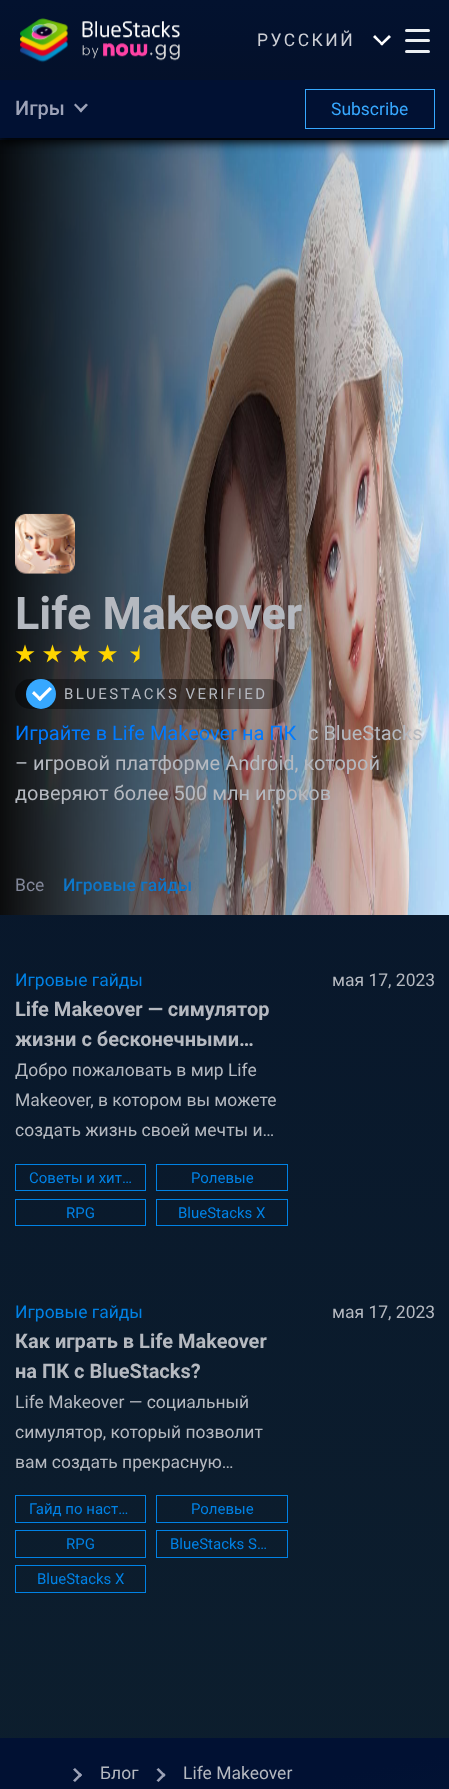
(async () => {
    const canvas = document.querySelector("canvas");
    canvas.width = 449;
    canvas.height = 1789;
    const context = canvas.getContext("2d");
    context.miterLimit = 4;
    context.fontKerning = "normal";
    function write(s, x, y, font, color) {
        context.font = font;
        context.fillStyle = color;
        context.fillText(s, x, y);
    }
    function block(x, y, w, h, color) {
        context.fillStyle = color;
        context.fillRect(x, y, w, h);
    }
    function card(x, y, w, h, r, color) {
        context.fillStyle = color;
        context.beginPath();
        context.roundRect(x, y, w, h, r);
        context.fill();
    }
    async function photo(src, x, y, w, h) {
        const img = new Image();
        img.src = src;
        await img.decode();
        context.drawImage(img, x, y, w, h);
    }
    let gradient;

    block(0, 0, 449, 1789, "rgb(255, 255, 255)");
    gradient = context.createLinearGradient(225, 0, 225, 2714);
    gradient.addColorStop(0, "rgb(4, 17, 41)");
    gradient.addColorStop(1, "rgb(17, 37, 48)");
    context.fillStyle = gradient;
    context.fillRect(0, 138, 449, 1600);
    await photo("media/3.png", 0, 140, 449, 775);
    context.fillStyle = "rgba(0, 0, 0, 0.86)";
    context.filter = "blur(5px)";
    context.beginPath();
    context.rect(0, 85, 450, 58);
    context.fill();
    context.filter = "none";
    gradient = context.createLinearGradient(225, 0, 225, 80);
    gradient.addColorStop(0, "rgb(3, 18, 47)");
    gradient.addColorStop(0.51, "rgb(3, 17, 45)");
    gradient.addColorStop(1, "rgb(4, 17, 42)");
    context.fillStyle = gradient;
    context.fillRect(0, 0, 449, 80);
    await photo("media/1.png", 20, 18, 48, 45);
    await photo("media/2.png", 82, 21, 98, 40);
    context.letterSpacing = "2.5px";
    write("РУССКИЙ", 257, 46, "17.5px Roboto", "rgb(205, 207, 213)");
    context.fillStyle = "rgb(255, 255, 255)";
    context.beginPath();
    context.moveTo(389, 35);
    context.lineTo(391, 37);
    context.lineTo(382, 45.5);
    context.lineTo(380, 44);
    context.closePath();
    context.fill();
    context.beginPath();
    context.moveTo(375, 35);
    context.lineTo(383.5, 44);
    context.lineTo(382, 45.5);
    context.lineTo(373, 37);
    context.closePath();
    context.fill();
    card(405, 29, 25, 3, 1.5, "rgb(235, 239, 242)");
    card(405, 39, 25, 3, 1.5, "rgb(235, 239, 242)");
    card(405, 50, 25, 3, 1.5, "rgb(235, 239, 242)");
    block(0, 80, 449, 58, "rgb(1, 17, 51)");
    context.letterSpacing = "0px";
    write("Игры", 15, 115, "500 20px Roboto", "rgb(156, 162, 183)");
    context.beginPath();
    context.moveTo(86, 103.5);
    context.lineTo(88, 105);
    context.lineTo(81, 112.5);
    context.lineTo(79, 110.5);
    context.closePath();
    context.fill();
    context.beginPath();
    context.moveTo(75.5, 103.5);
    context.lineTo(82.5, 110.5);
    context.lineTo(81, 112.5);
    context.lineTo(74, 105);
    context.closePath();
    context.fill();
    context.strokeStyle = "rgb(55, 168, 255)";
    context.strokeRect(305.5, 89.5, 129, 39);
    write("Subscribe", 331, 115, "17.5px Roboto", "rgb(55, 168, 255)");
    await photo("media/4.png", 15, 513, 60, 61);
    write("Life Makeover", 15, 629, "bold 45px Roboto", "rgb(181, 185, 192)");
    await photo("media/5.png", 15, 644, 20, 19);
    await photo("media/6.png", 43, 644, 19, 19);
    await photo("media/7.png", 70, 644, 20, 19);
    await photo("media/8.png", 98, 644, 19, 19);
    context.fillStyle = "rgb(255, 213, 0)";
    context.beginPath();
    context.moveTo(133.5, 663);
    context.lineTo(139.5, 658.5);
    context.lineTo(139.5, 644.5);
    context.lineTo(137.5, 651.5);
    context.lineTo(130, 651.5);
    context.lineTo(136, 656);
    context.closePath();
    context.fill();
    card(15, 679, 269, 30, 15, "rgba(0, 0, 0, 0.4)");
    context.fillStyle = "rgb(55, 168, 255)";
    context.beginPath();
    context.arc(41, 694, 15, 0, Math.PI * 2);
    context.fill();
    context.fillStyle = "rgb(255, 255, 255)";
    context.beginPath();
    context.moveTo(49.5, 687);
    context.lineTo(52, 689);
    context.lineTo(40, 701);
    context.lineTo(37.5, 699);
    context.closePath();
    context.fill();
    context.beginPath();
    context.moveTo(34, 691);
    context.lineTo(42, 699);
    context.lineTo(40, 701);
    context.lineTo(32, 693.5);
    context.closePath();
    context.fill();
    context.letterSpacing = "2.5px";
    write("BLUESTACKS VERIFIED", 64, 699, "15px Roboto", "rgb(181, 185, 192)");
    context.letterSpacing = "0px";
    write("Играйте в Life Makeover на ПК", 15, 740, "20px Roboto", "rgb(0, 123, 255)");
    write("с BlueStacks", 308, 740, "20px Roboto", "rgb(181, 185, 192)");
    write("– игровой платформе Android, которой", 15, 770, "20px Roboto", "rgb(181, 185, 192)");
    write("доверяют более 500 млн игроков", 15, 800, "20px Roboto", "rgb(181, 185, 192)");
    write("Все", 15, 891, "17.5px Roboto", "rgb(130, 135, 153)");
    write("Игровые гайды", 63, 891, "500 17.5px Roboto", "rgb(14, 118, 199)");
    write("Игровые гайды", 15, 986, "17.5px Roboto", "rgb(0, 130, 229)");
    write("мая 17, 2023", 332, 986, "17.5px Roboto", "rgb(181, 185, 192)");
    write("Life Makeover — симулятор", 15, 1016, "bold 20px Roboto", "rgb(181, 185, 192)");
    write("жизни с бесконечными…", 15, 1046, "bold 20px Roboto", "rgb(181, 185, 192)");
    write("Добро пожаловать в мир Life", 15, 1076, "17.5px Roboto", "rgb(181, 185, 192)");
    write("Makeover, в котором вы можете", 15, 1106, "17.5px Roboto", "rgb(181, 185, 192)");
    write("создать жизнь своей мечты и…", 15, 1136, "17.5px Roboto", "rgb(181, 185, 192)");
    context.strokeStyle = "rgb(0, 130, 229)";
    context.strokeRect(15.5, 1164.5, 130, 26);
    write("Советы и хит…", 29, 1183, "15px Roboto", "rgb(0, 130, 229)");
    context.strokeRect(156.5, 1164.5, 131, 26);
    write("Ролевые", 191, 1183, "15px Roboto", "rgb(0, 130, 229)");
    context.strokeRect(15.5, 1199.5, 130, 26);
    write("RPG", 66, 1218, "15px Roboto", "rgb(0, 130, 229)");
    context.strokeRect(156.5, 1199.5, 131, 26);
    write("BlueStacks X", 178, 1218, "15px Roboto", "rgb(0, 130, 229)");
    write("Игровые гайды", 15, 1318, "17.5px Roboto", "rgb(0, 130, 229)");
    write("мая 17, 2023", 332, 1318, "17.5px Roboto", "rgb(181, 185, 192)");
    write("Как играть в Life Makeover", 15, 1348, "bold 20px Roboto", "rgb(181, 185, 192)");
    write("на ПК с BlueStacks?", 15, 1378, "bold 20px Roboto", "rgb(181, 185, 192)");
    write("Life Makeover — социальный", 15, 1408, "17.5px Roboto", "rgb(181, 185, 192)");
    write("симулятор, который позволит", 15, 1438, "17.5px Roboto", "rgb(181, 185, 192)");
    write("вам создать прекрасную…", 15, 1468, "17.5px Roboto", "rgb(181, 185, 192)");
    context.strokeRect(15.5, 1495.5, 130, 27);
    write("Гайд по наст…", 29, 1514, "15px Roboto", "rgb(0, 130, 229)");
    context.strokeRect(156.5, 1495.5, 131, 27);
    write("Ролевые", 191, 1514, "15px Roboto", "rgb(0, 130, 229)");
    context.strokeRect(15.5, 1530.5, 130, 27);
    write("RPG", 66, 1549, "15px Roboto", "rgb(0, 130, 229)");
    context.strokeRect(156.5, 1530.5, 131, 27);
    write("BlueStacks S…", 170, 1549, "15px Roboto", "rgb(0, 130, 229)");
    context.strokeRect(15.5, 1565.5, 130, 27);
    write("BlueStacks X", 37, 1584, "15px Roboto", "rgb(0, 130, 229)");
    gradient = context.createLinearGradient(330, 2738, 120, 1713);
    gradient.addColorStop(0.32, "rgb(14, 42, 62)");
    gradient.addColorStop(0.9, "rgb(1, 17, 51)");
    context.fillStyle = gradient;
    context.fillRect(0, 1738, 449, 51);
    context.fillStyle = "rgb(156, 162, 183)";
    context.beginPath();
    context.moveTo(73, 1769.5);
    context.lineTo(75, 1768);
    context.lineTo(82, 1775);
    context.lineTo(80.5, 1777);
    context.closePath();
    context.fill();
    context.beginPath();
    context.moveTo(73, 1780.5);
    context.lineTo(80.5, 1773);
    context.lineTo(82, 1775);
    context.lineTo(75, 1782);
    context.closePath();
    context.fill();
    write("Блог", 100, 1779, "17.5px Roboto", "rgb(181, 185, 192)");
    context.fillStyle = "rgb(156, 162, 183)";
    context.beginPath();
    context.moveTo(156.5, 1769.5);
    context.lineTo(158.5, 1768);
    context.lineTo(165.5, 1775);
    context.lineTo(164, 1777);
    context.closePath();
    context.fill();
    context.beginPath();
    context.moveTo(156.5, 1780.5);
    context.lineTo(164, 1773);
    context.lineTo(165.5, 1775);
    context.lineTo(158.5, 1782);
    context.closePath();
    context.fill();
    write("Life Makeover", 183, 1779, "17.5px Roboto", "rgb(181, 185, 192)");
})();
